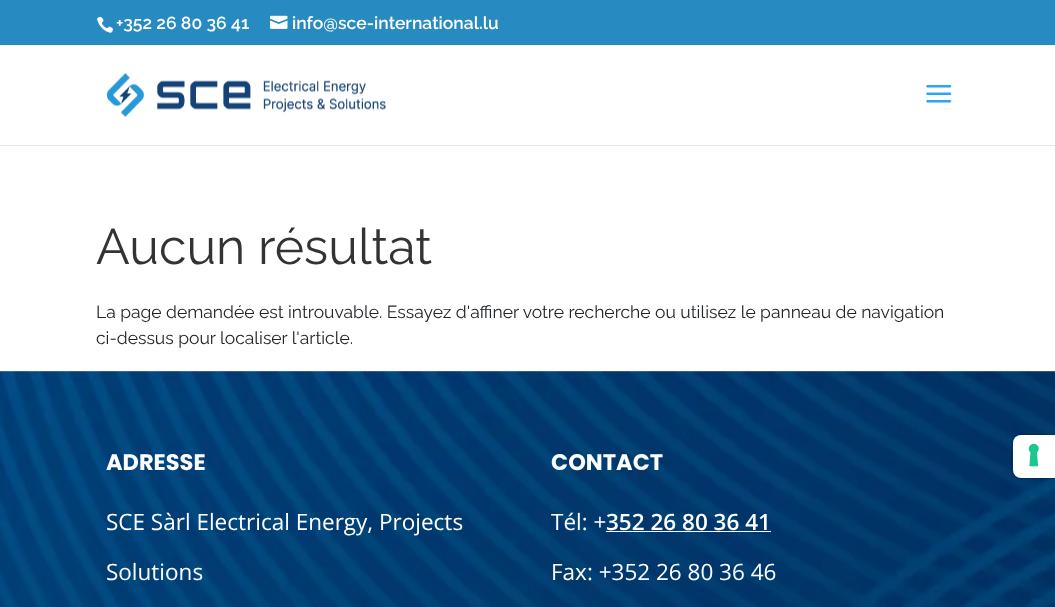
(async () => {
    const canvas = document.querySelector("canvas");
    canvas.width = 1055;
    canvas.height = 607;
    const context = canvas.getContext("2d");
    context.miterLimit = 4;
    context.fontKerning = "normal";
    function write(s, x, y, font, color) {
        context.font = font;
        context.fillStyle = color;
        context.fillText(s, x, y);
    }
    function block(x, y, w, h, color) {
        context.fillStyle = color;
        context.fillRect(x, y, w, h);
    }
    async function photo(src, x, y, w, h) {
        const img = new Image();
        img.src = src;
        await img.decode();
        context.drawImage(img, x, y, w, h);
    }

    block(0, 0, 1055, 607, "rgb(255, 255, 255)");
    block(0, 0, 1055, 45, "rgb(39, 139, 194)");
    await photo("media/1.png", 97, 16, 16, 17);
    write("+352 26 80 36 41", 116, 29, "600 17.5px Raleway", "rgb(255, 255, 255)");
    await photo("media/2.png", 270, 15, 18, 14);
    write("info@sce-international.lu", 292, 29, "600 17.5px Raleway", "rgb(255, 255, 255)");
    block(0, 145, 1055, 1, "rgb(230, 230, 230)");
    await photo("media/3.png", 106, 72, 280, 46);
    await photo("media/4.png", 926, 85, 26, 18);
    write("Aucun résultat", 96, 264, "50px Raleway", "rgb(51, 51, 51)");
    write("La page demandée est introuvable. Essayez d'affiner votre recherche ou utilisez le panneau de navigation", 96, 318, "17.5px Raleway", "rgb(33, 37, 41)");
    write("ci-dessus pour localiser l'article.", 96, 344, "17.5px Raleway", "rgb(33, 37, 41)");
    await photo("media/5.png", 0, 371, 1055, 236);
    write("ADRESSE", 106, 470, "bold 22.5px Poppins", "rgb(255, 255, 255)");
    write("SCE Sàrl Electrical Energy, Projects", 106, 530, "22.5px Open Sans", "rgb(255, 255, 255)");
    write("Solutions", 106, 580, "22.5px Open Sans", "rgb(255, 255, 255)");
    write("CONTACT", 551, 470, "bold 22.5px Poppins", "rgb(255, 255, 255)");
    write("Tél: +", 551, 530, "22.5px Open Sans", "rgb(255, 255, 255)");
    write("352 26 80 36 41", 606, 530, "600 22.5px Open Sans", "rgb(255, 255, 255)");
    block(606, 531, 165, 1, "rgb(255, 255, 255)");
    write("Fax: +352 26 80 36 46", 551, 580, "22.5px Open Sans", "rgb(255, 255, 255)");
    context.beginPath();
    context.moveTo(1020, 434.5);
    context.lineTo(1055.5, 434.5);
    context.lineTo(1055.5, 478.5);
    context.lineTo(1020, 478.5);
    context.bezierCurveTo(1015.5, 478.5, 1011.5, 474.5, 1011.5, 470);
    context.lineTo(1011.5, 443);
    context.bezierCurveTo(1011.5, 438.5, 1015.5, 434.5, 1020, 434.5);
    context.closePath();
    context.strokeStyle = "rgba(0, 0, 0, 0.15)";
    context.stroke();
    context.beginPath();
    context.roundRect(1013, 435, 42, 43, [8, 0, 0, 8]);
    context.fill();
    await photo("media/6.png", 1028, 443, 11, 24);
})();
